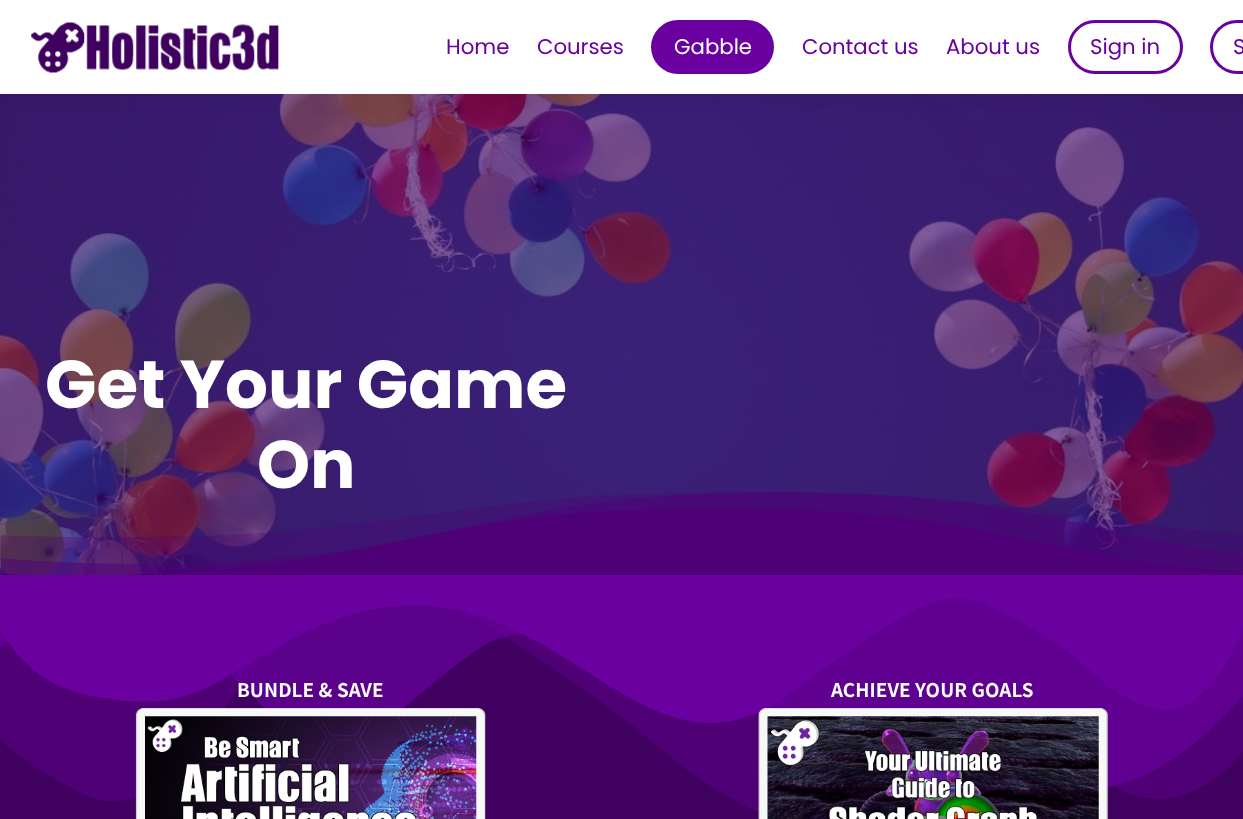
(async () => {
    const canvas = document.querySelector("canvas");
    canvas.width = 1243;
    canvas.height = 819;
    const context = canvas.getContext("2d");
    context.miterLimit = 4;
    context.fontKerning = "normal";
    function write(s, x, y, font, color) {
        context.font = font;
        context.fillStyle = color;
        context.fillText(s, x, y);
    }
    function block(x, y, w, h, color) {
        context.fillStyle = color;
        context.fillRect(x, y, w, h);
    }
    function card(x, y, w, h, r, color) {
        context.fillStyle = color;
        context.beginPath();
        context.roundRect(x, y, w, h, r);
        context.fill();
    }
    async function photo(src, x, y, w, h) {
        const img = new Image();
        img.src = src;
        await img.decode();
        context.drawImage(img, x, y, w, h);
    }

    block(0, 0, 1243, 819, "rgb(255, 255, 255)");
    await photo("media/2.png", 0, 94, 1243, 481);
    context.fillStyle = "rgba(0, 0, 0, 0.05)";
    context.filter = "blur(9.5px)";
    context.beginPath();
    context.rect(0, 0, 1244, 94);
    context.fill();
    context.filter = "none";
    block(0, 0, 1243, 94, "rgb(255, 255, 255)");
    await photo("media/1.png", 31, 22, 249, 51);
    write("Home", 446, 54, "21.25px Poppins", "rgb(105, 0, 159)");
    write("Courses", 537, 54, "21.25px Poppins", "rgb(105, 0, 159)");
    card(651, 20, 123, 54, 27, "rgb(105, 0, 159)");
    write("Gabble", 674, 54, "21.25px Poppins", "rgb(255, 255, 255)");
    write("Contact us", 802, 54, "21.25px Poppins", "rgb(105, 0, 159)");
    write("About us", 946, 54, "21.25px Poppins", "rgb(105, 0, 159)");
    context.beginPath();
    context.roundRect(1069.5, 21.5, 112, 51, 25.5);
    context.strokeStyle = "rgb(105, 0, 159)";
    context.lineWidth = 3;
    context.stroke();
    write("Sign in", 1090, 54, "21.25px Poppins", "rgb(105, 0, 159)");
    context.beginPath();
    context.roundRect(1211.5, 21.5, 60, 51, 25.5);
    context.stroke();
    write("S", 1233, 54, "21.25px Poppins", "rgb(105, 0, 159)");
    write("Get Your Game", 45, 408, "bold 67.5px Poppins", "rgb(255, 255, 255)");
    write("On", 257, 488, "bold 67.5px Poppins", "rgb(255, 255, 255)");
    await photo("media/3.png", 1, 491, 1242, 84);
    block(0, 598, 1243, 221, "rgb(64, 0, 96)");
    await photo("media/4.png", 0, 575, 1243, 238);
    context.letterSpacing = "0.1px";
    write("BUNDLE & SAVE", 237, 697, "bold 18.75px Noto Sans JP", "rgb(255, 255, 255)");
    await photo("media/5.png", 135, 707, 351, 112);
    await photo("media/6.png", 145, 716, 332, 103);
    write("ACHIEVE YOUR GOALS", 831, 697, "bold 18.75px Noto Sans JP", "rgb(255, 255, 255)");
    await photo("media/7.png", 758, 707, 351, 112);
    block(768, 716, 331, 103, "rgb(255, 255, 255)");
    await photo("media/8.png", 767, 716, 332, 103);
})();
